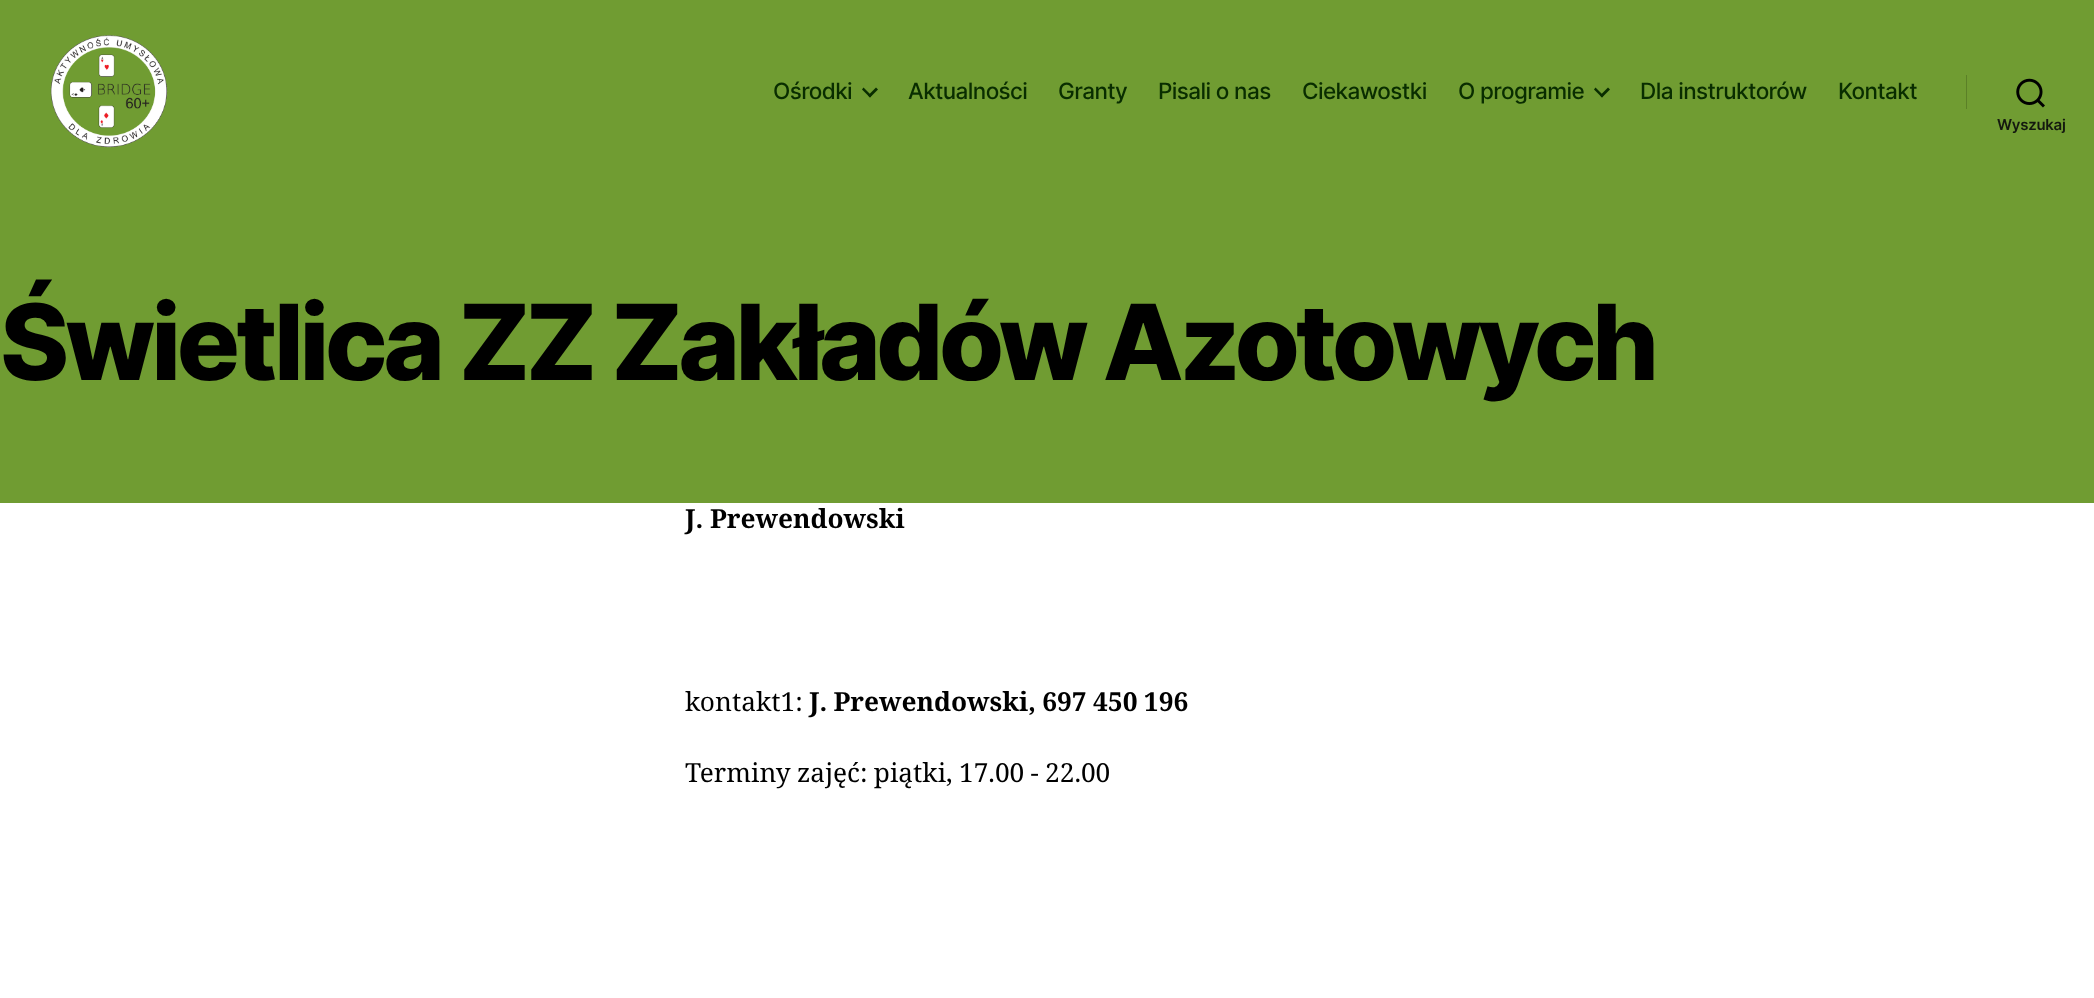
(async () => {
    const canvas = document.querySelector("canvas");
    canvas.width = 2094;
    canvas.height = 998;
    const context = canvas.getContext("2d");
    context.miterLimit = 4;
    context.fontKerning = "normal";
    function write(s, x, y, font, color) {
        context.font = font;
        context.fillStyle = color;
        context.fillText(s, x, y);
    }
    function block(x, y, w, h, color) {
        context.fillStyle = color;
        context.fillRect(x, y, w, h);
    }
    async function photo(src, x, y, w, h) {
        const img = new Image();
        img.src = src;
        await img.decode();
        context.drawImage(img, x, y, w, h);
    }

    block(0, 0, 2094, 998, "rgb(255, 255, 255)");
    block(0, 0, 2094, 503, "rgb(112, 156, 50)");
    await photo("media/1.png", 50, 35, 118, 113);
    context.letterSpacing = "-0.6px";
    write("Ośrodki", 773, 99, "500 22.5px Inter", "rgb(9, 45, 0)");
    context.beginPath();
    context.moveTo(862, 89.5);
    context.lineTo(863.5, 87.5);
    context.lineTo(871.5, 95.5);
    context.lineTo(870, 97.5);
    context.closePath();
    context.fill();
    context.beginPath();
    context.moveTo(868, 95.5);
    context.lineTo(876, 87.5);
    context.lineTo(878, 89.5);
    context.lineTo(870, 97.5);
    context.closePath();
    context.fill();
    write("Aktualności", 908, 99, "500 22.5px Inter", "rgb(9, 45, 0)");
    write("Granty", 1058, 99, "500 22.5px Inter", "rgb(9, 45, 0)");
    write("Pisali o nas", 1158, 99, "500 22.5px Inter", "rgb(9, 45, 0)");
    write("Ciekawostki", 1302, 99, "500 22.5px Inter", "rgb(9, 45, 0)");
    write("O programie", 1458, 99, "500 22.5px Inter", "rgb(9, 45, 0)");
    context.beginPath();
    context.moveTo(1594, 89.5);
    context.lineTo(1595.5, 87.5);
    context.lineTo(1603.5, 95.5);
    context.lineTo(1602, 97.5);
    context.closePath();
    context.fill();
    context.beginPath();
    context.moveTo(1600, 95.5);
    context.lineTo(1608, 87.5);
    context.lineTo(1610, 89.5);
    context.lineTo(1602, 97.5);
    context.closePath();
    context.fill();
    write("Dla instruktorów", 1640, 99, "500 22.5px Inter", "rgb(9, 45, 0)");
    write("Kontakt", 1838, 99, "500 22.5px Inter", "rgb(9, 45, 0)");
    block(1966, 75, 1, 34, "rgb(91, 128, 39)");
    await photo("media/2.png", 2016, 78, 29, 30);
    context.letterSpacing = "-0.25px";
    write("Wyszukaj", 1997, 130, "600 15px Inter", "rgb(20, 25, 15)");
    context.letterSpacing = "-4.35px";
    write("Świetlica ZZ Zakładów Azotowych", 0, 380, "800 105px Inter", "rgb(0, 0, 0)");
    context.letterSpacing = "0px";
    write("J. Prewendowski", 685, 528, "bold 26.25px Noto Serif", "rgb(0, 0, 0)");
    write("kontakt1:", 685, 711, "26.25px Noto Serif", "rgb(0, 0, 0)");
    context.wordSpacing = "-0.5px";
    write("J. Prewendowski, 697 450 196", 809, 711, "bold 26.25px Noto Serif", "rgb(0, 0, 0)");
    write("Terminy zajęć: piątki, 17.00 - 22.00", 685, 782, "26.25px Noto Serif", "rgb(0, 0, 0)");
})();
